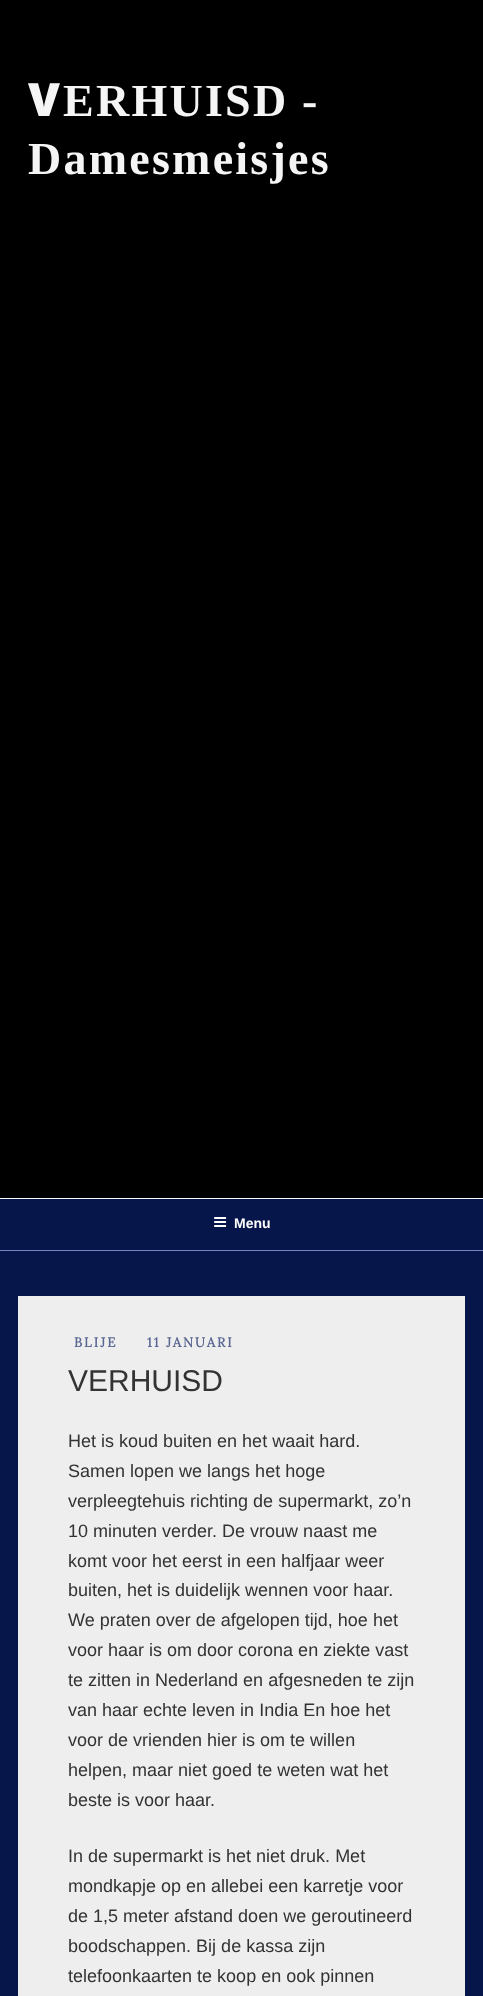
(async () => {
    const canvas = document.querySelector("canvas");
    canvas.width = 483;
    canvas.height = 1996;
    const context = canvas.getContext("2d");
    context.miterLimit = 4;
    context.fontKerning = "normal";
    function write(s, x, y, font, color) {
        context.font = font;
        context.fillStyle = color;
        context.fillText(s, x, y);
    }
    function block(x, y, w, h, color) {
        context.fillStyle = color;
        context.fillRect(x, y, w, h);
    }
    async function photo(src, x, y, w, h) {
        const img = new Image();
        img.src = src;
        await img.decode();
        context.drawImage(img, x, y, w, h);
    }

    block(0, 0, 483, 1996, "rgb(250, 250, 250)");
    block(0, 0, 483, 1198, "rgb(0, 0, 0)");
    context.letterSpacing = "2.25px";
    write("V", 28, 116, "900 46px Noto Sans", "rgb(245, 245, 245)");
    write("ERHUISD -", 63, 116, "bold 46px Liberation Serif", "rgb(245, 245, 245)");
    write("Damesmeisjes", 28, 174, "bold 46px Liberation Serif", "rgb(245, 245, 245)");
    block(0, 1199, 483, 51, "rgb(6, 21, 74)");
    block(0, 1250, 483, 1, "rgb(124, 129, 196)");
    await photo("media/1.png", 214, 1217, 13, 10);
    context.letterSpacing = "0px";
    write("Menu", 234, 1228, "bold 14px Liberation Sans", "rgb(254, 254, 254)");
    block(0, 1251, 483, 745, "rgb(6, 21, 74)");
    block(18, 1296, 447, 700, "rgb(238, 238, 238)");
    context.letterSpacing = "2px";
    write("BLIJE", 74, 1347, "bold 13.25px Lora", "rgb(91, 103, 147)");
    write("11 JANUARI", 147, 1347, "bold 13.25px Lora", "rgb(91, 103, 147)");
    context.letterSpacing = "0px";
    write("VERHUISD", 68, 1391, "30px Liberation Sans", "rgb(51, 51, 51)");
    write("Het is koud buiten en het waait hard.", 68, 1447, "18px Liberation Sans", "rgb(51, 51, 51)");
    write("Samen lopen we langs het hoge", 68, 1477, "18px Liberation Sans", "rgb(51, 51, 51)");
    write("verpleegtehuis richting de supermarkt, zo’n", 68, 1507, "18px Liberation Sans", "rgb(51, 51, 51)");
    write("10 minuten verder. De vrouw naast me", 68, 1537, "18px Liberation Sans", "rgb(51, 51, 51)");
    write("komt voor het eerst in een halfjaar weer", 68, 1567, "18px Liberation Sans", "rgb(51, 51, 51)");
    write("buiten, het is duidelijk wennen voor haar.", 68, 1596, "18px Liberation Sans", "rgb(51, 51, 51)");
    write("We praten over de afgelopen tijd, hoe het", 68, 1626, "18px Liberation Sans", "rgb(51, 51, 51)");
    write("voor haar is om door corona en ziekte vast", 68, 1656, "18px Liberation Sans", "rgb(51, 51, 51)");
    write("te zitten in Nederland en afgesneden te zijn", 68, 1686, "18px Liberation Sans", "rgb(51, 51, 51)");
    write("van haar echte leven in India En hoe het", 68, 1716, "18px Liberation Sans", "rgb(51, 51, 51)");
    write("voor de vrienden hier is om te willen", 68, 1746, "18px Liberation Sans", "rgb(51, 51, 51)");
    write("helpen, maar niet goed te weten wat het", 68, 1776, "18px Liberation Sans", "rgb(51, 51, 51)");
    write("beste is voor haar.", 68, 1806, "18px Liberation Sans", "rgb(51, 51, 51)");
    write("In de supermarkt is het niet druk. Met", 68, 1862, "18px Liberation Sans", "rgb(51, 51, 51)");
    write("mondkapje op en allebei een karretje voor", 68, 1892, "18px Liberation Sans", "rgb(51, 51, 51)");
    write("de 1,5 meter afstand doen we geroutineerd", 68, 1922, "18px Liberation Sans", "rgb(51, 51, 51)");
    write("boodschappen. Bij de kassa zijn", 68, 1952, "18px Liberation Sans", "rgb(51, 51, 51)");
    write("telefoonkaarten te koop en ook pinnen", 68, 1982, "18px Liberation Sans", "rgb(51, 51, 51)");
})();
